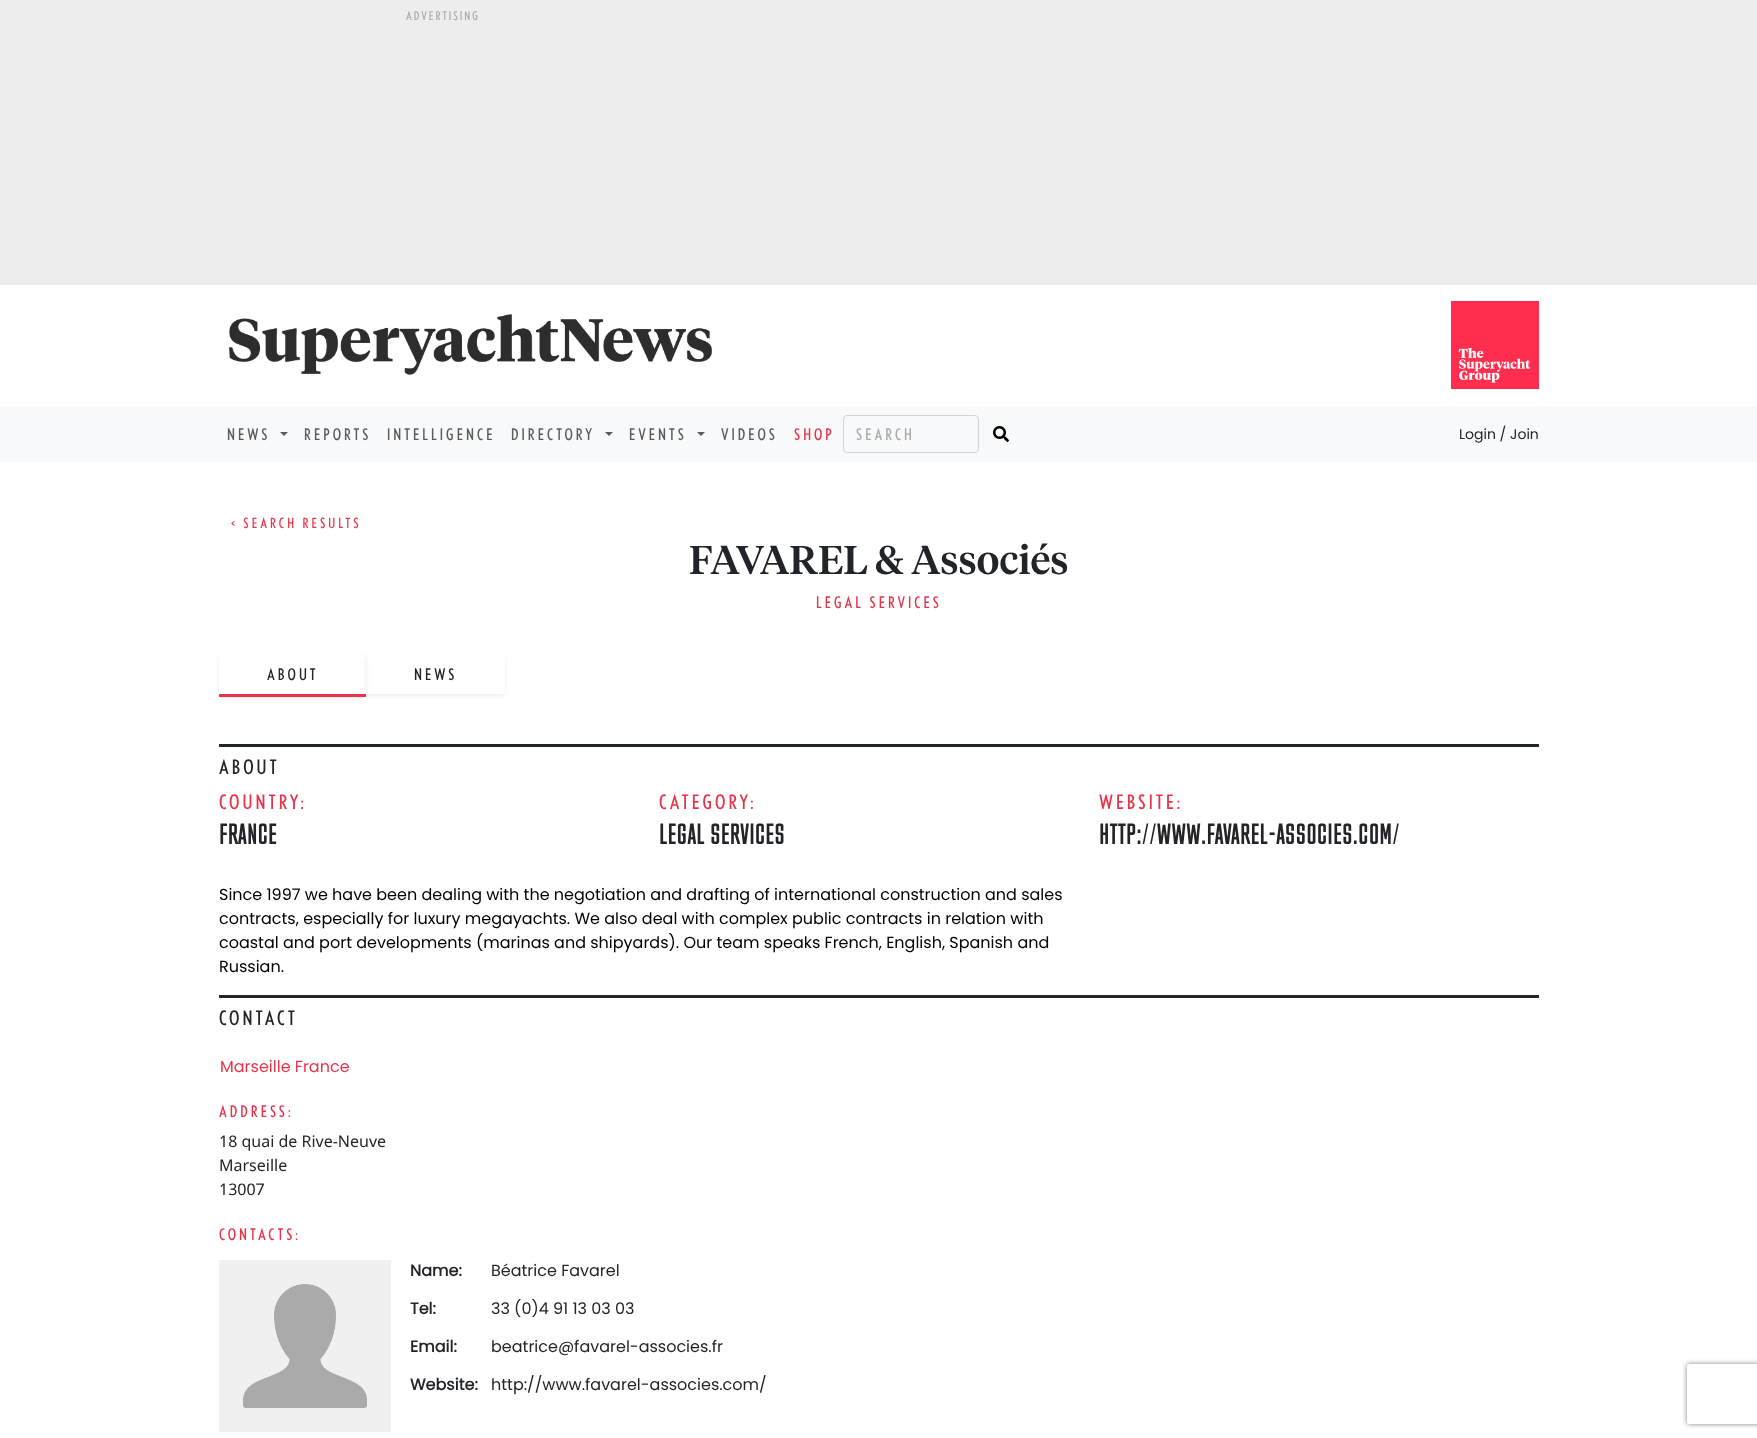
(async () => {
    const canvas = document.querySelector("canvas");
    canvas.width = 1757;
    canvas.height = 1438;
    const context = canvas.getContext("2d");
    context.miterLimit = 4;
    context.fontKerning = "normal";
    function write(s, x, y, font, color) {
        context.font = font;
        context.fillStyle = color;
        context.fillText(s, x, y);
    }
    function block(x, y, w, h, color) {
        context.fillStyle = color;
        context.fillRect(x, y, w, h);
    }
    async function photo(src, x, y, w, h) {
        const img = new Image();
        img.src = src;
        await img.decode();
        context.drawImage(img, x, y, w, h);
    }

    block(0, 0, 1757, 1438, "rgb(255, 255, 255)");
    block(0, 0, 1757, 285, "rgb(237, 237, 237)");
    context.letterSpacing = "2px";
    write("ADVERTISING", 406, 20, "12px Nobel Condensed", "rgb(170, 170, 170)");
    await photo("media/1.png", 229, 314, 483, 61);
    await photo("media/2.png", 1451, 301, 88, 88);
    block(0, 406, 1757, 56, "rgb(248, 249, 250)");
    context.letterSpacing = "3px";
    write("NEWS", 227, 440, "16px Nobel Condensed", "rgb(91, 91, 91)");
    context.beginPath();
    context.moveTo(280, 432);
    context.lineTo(288, 432);
    context.lineTo(284, 436);
    context.closePath();
    context.fill();
    write("REPORTS", 304, 440, "16px Nobel Condensed", "rgb(91, 91, 91)");
    write("INTELLIGENCE", 387, 440, "16px Nobel Condensed", "rgb(91, 91, 91)");
    write("DIRECTORY", 511, 440, "16px Nobel Condensed", "rgb(91, 91, 91)");
    context.beginPath();
    context.moveTo(605, 432);
    context.lineTo(613, 432);
    context.lineTo(609, 436);
    context.closePath();
    context.fill();
    write("EVENTS", 629, 440, "16px Nobel Condensed", "rgb(91, 91, 91)");
    context.beginPath();
    context.moveTo(697, 432);
    context.lineTo(705, 432);
    context.lineTo(701, 436);
    context.closePath();
    context.fill();
    write("VIDEOS", 721, 440, "16px Nobel Condensed", "rgb(91, 91, 91)");
    write("SHOP", 794, 440, "16px Nobel Condensed", "rgb(231, 52, 74)");
    context.beginPath();
    context.roundRect(843.5, 415.5, 135, 37, 3.5);
    context.strokeStyle = "rgb(206, 212, 218)";
    context.stroke();
    write("SEARCH", 856, 440, "16px Nobel Condensed", "rgb(170, 170, 170)");
    await photo("media/3.png", 993, 426, 16, 16);
    context.letterSpacing = "0px";
    write("Login / Join", 1459, 439, "14px Poppins", "rgb(33, 37, 41)");
    block(219, 744, 1320, 3, "rgb(33, 37, 41)");
    context.letterSpacing = "3px";
    write("< SEARCH RESULTS", 231, 528, "14px Nobel Condensed", "rgb(231, 52, 74)");
    context.letterSpacing = "0px";
    write("FAVAREL & Associés", 689, 574, "500 40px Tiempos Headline", "rgb(33, 37, 41)");
    context.letterSpacing = "3px";
    write("LEGAL SERVICES", 816, 608, "16px Nobel Condensed", "rgb(231, 52, 74)");
    context.save();
    context.beginPath();
    context.moveTo(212, 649);
    context.lineTo(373, 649);
    context.lineTo(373, 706);
    context.lineTo(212, 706);
    context.closePath();
    context.moveTo(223, 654);
    context.lineTo(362, 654);
    context.bezierCurveTo(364, 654, 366, 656, 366, 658);
    context.lineTo(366, 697);
    context.lineTo(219, 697);
    context.lineTo(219, 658);
    context.bezierCurveTo(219, 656, 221, 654, 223, 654);
    context.closePath();
    context.clip("evenodd");
    context.fillStyle = "rgba(0, 0, 0, 0.07)";
    context.filter = "blur(2px)";
    context.beginPath();
    context.roundRect(219, 656, 147, 43, 4);
    context.fill();
    context.filter = "none";
    context.restore();
    block(219, 694, 147, 3, "rgb(231, 52, 74)");
    write("ABOUT", 267, 680, "16px Nobel Condensed", "rgb(33, 37, 41)");
    context.save();
    context.beginPath();
    context.moveTo(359, 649);
    context.lineTo(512, 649);
    context.lineTo(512, 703);
    context.lineTo(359, 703);
    context.closePath();
    context.moveTo(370, 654);
    context.lineTo(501, 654);
    context.bezierCurveTo(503, 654, 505, 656, 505, 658);
    context.lineTo(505, 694);
    context.lineTo(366, 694);
    context.lineTo(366, 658);
    context.bezierCurveTo(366, 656, 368, 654, 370, 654);
    context.closePath();
    context.clip("evenodd");
    context.fillStyle = "rgba(0, 0, 0, 0.07)";
    context.filter = "blur(2px)";
    context.beginPath();
    context.roundRect(366, 656, 139, 40, 4);
    context.fill();
    context.filter = "none";
    context.restore();
    write("NEWS", 414, 680, "16px Nobel Condensed", "rgb(33, 37, 41)");
    write("ABOUT", 219, 774, "20px Nobel Condensed", "rgb(33, 37, 41)");
    write("COUNTRY:", 219, 809, "20px Nobel Condensed", "rgb(231, 52, 74)");
    context.letterSpacing = "0px";
    write("FRANCE", 219, 844, "28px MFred", "rgb(33, 37, 41)");
    context.letterSpacing = "3px";
    write("CATEGORY:", 659, 809, "20px Nobel Condensed", "rgb(231, 52, 74)");
    context.letterSpacing = "0px";
    write("LEGAL SERVICES", 659, 844, "28px MFred", "rgb(33, 37, 41)");
    context.letterSpacing = "3px";
    write("WEBSITE:", 1099, 809, "20px Nobel Condensed", "rgb(231, 52, 74)");
    context.letterSpacing = "0px";
    write("HTTP://WWW.FAVAREL-ASSOCIES.COM/", 1099, 844, "28px MFred", "rgb(33, 37, 41)");
    write("Since 1997 we have been dealing with the negotiation and drafting of international construction and sales", 219, 900, "16px Poppins", "rgb(0, 0, 0)");
    write("contracts, especially for luxury megayachts. We also deal with complex public contracts in relation with", 219, 924, "16px Poppins", "rgb(0, 0, 0)");
    write("coastal and port developments (marinas and shipyards). Our team speaks French, English, Spanish and", 219, 948, "16px Poppins", "rgb(0, 0, 0)");
    write("Russian.", 219, 972, "16px Poppins", "rgb(0, 0, 0)");
    block(219, 995, 1320, 3, "rgb(33, 37, 41)");
    context.letterSpacing = "3px";
    write("CONTACT", 219, 1025, "20px Nobel Condensed", "rgb(33, 37, 41)");
    context.letterSpacing = "0px";
    write("Marseille France", 220, 1072, "16px Poppins", "rgb(231, 52, 74)");
    context.letterSpacing = "3px";
    write("ADDRESS:", 219, 1117, "16px Nobel Condensed", "rgb(231, 52, 74)");
    context.letterSpacing = "0px";
    write("18 quai de Rive-Neuve", 219, 1147, "16px Noto Sans", "rgb(33, 37, 41)");
    write("Marseille", 219, 1171, "16px Noto Sans", "rgb(33, 37, 41)");
    write("13007", 219, 1195, "16px Noto Sans", "rgb(33, 37, 41)");
    context.letterSpacing = "3px";
    write("CONTACTS:", 219, 1240, "16px Nobel Condensed", "rgb(231, 52, 74)");
    await photo("media/4.png", 219, 1260, 172, 172);
    context.letterSpacing = "0px";
    write("Name:", 410, 1276, "bold 16px Poppins", "rgb(33, 37, 41)");
    write("Béatrice Favarel", 491, 1276, "16px Poppins", "rgb(33, 37, 41)");
    write("Tel:", 410, 1314, "bold 16px Poppins", "rgb(33, 37, 41)");
    write("33 (0)4 91 13 03 03", 491, 1314, "16px Poppins", "rgb(33, 37, 41)");
    write("Email:", 410, 1352, "bold 16px Poppins", "rgb(33, 37, 41)");
    write("beatrice@favarel-associes.fr", 491, 1352, "16px Poppins", "rgb(33, 37, 41)");
    write("Website:", 410, 1390, "bold 16px Poppins", "rgb(33, 37, 41)");
    write("http://www.favarel-associes.com/", 491, 1390, "16px Poppins", "rgb(33, 37, 41)");
    context.save();
    context.beginPath();
    context.moveTo(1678, 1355);
    context.lineTo(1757, 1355);
    context.lineTo(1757, 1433);
    context.lineTo(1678, 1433);
    context.closePath();
    context.moveTo(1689, 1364);
    context.lineTo(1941, 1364);
    context.bezierCurveTo(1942, 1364, 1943, 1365, 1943, 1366);
    context.lineTo(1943, 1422);
    context.bezierCurveTo(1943, 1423, 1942, 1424, 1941, 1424);
    context.lineTo(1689, 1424);
    context.bezierCurveTo(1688, 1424, 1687, 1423, 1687, 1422);
    context.lineTo(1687, 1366);
    context.bezierCurveTo(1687, 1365, 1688, 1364, 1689, 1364);
    context.closePath();
    context.clip("evenodd");
    context.fillStyle = "rgb(128, 128, 128)";
    context.filter = "blur(2.5px)";
    context.beginPath();
    context.roundRect(1687, 1364, 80, 60, 2);
    context.fill();
    context.filter = "none";
    context.restore();
})();
